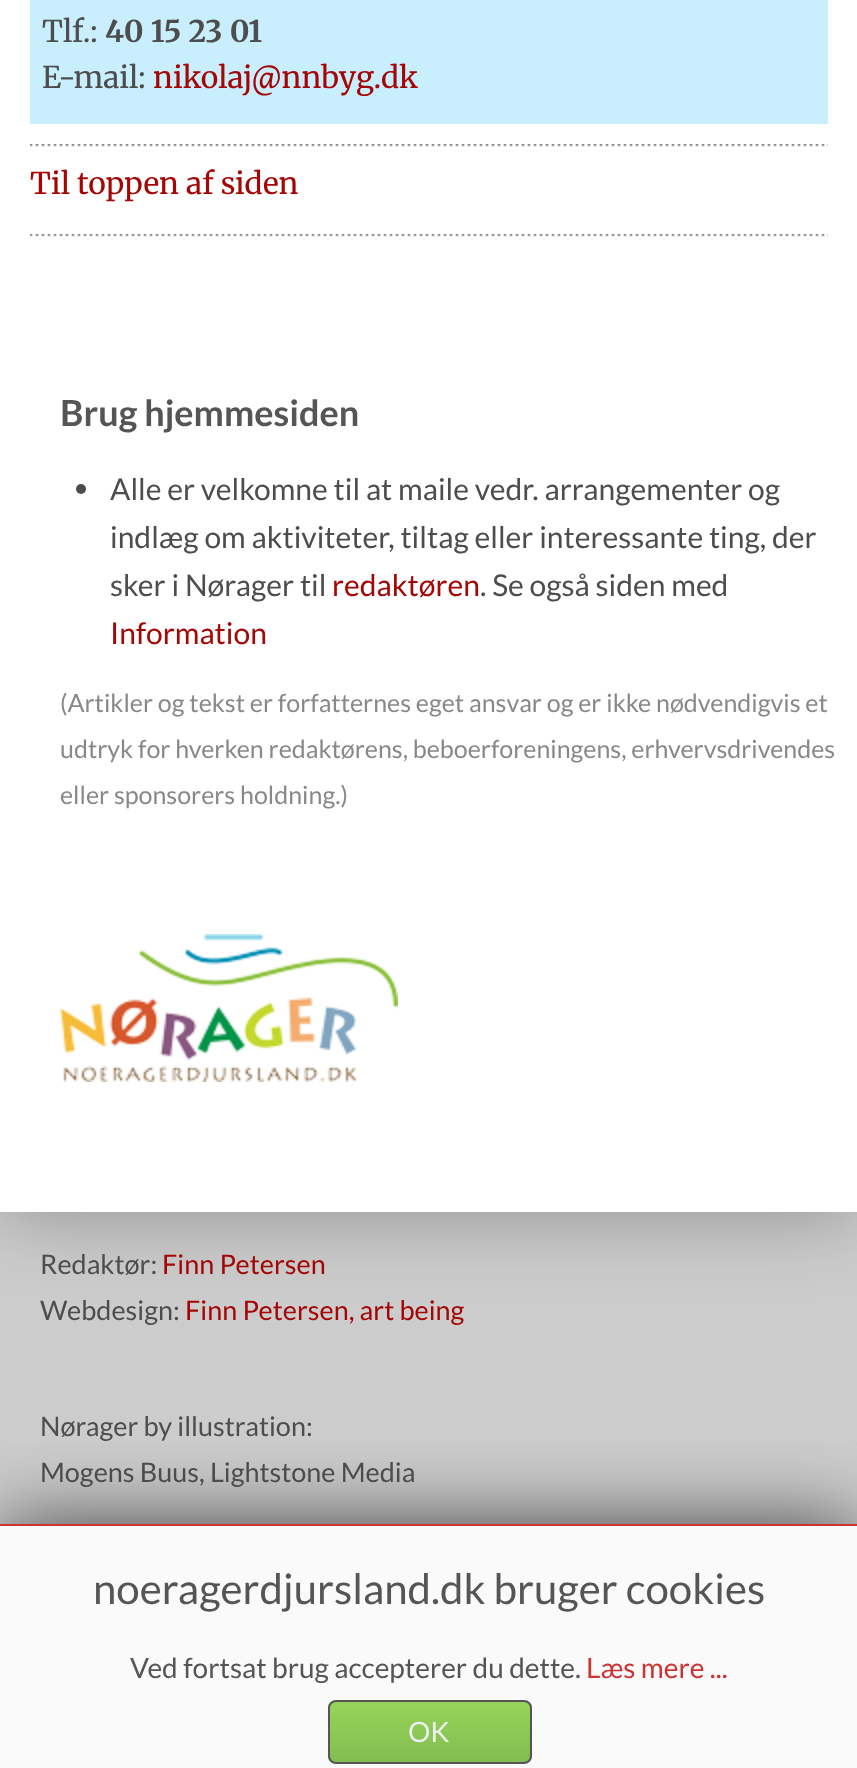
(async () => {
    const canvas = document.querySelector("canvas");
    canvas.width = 857;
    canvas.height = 1768;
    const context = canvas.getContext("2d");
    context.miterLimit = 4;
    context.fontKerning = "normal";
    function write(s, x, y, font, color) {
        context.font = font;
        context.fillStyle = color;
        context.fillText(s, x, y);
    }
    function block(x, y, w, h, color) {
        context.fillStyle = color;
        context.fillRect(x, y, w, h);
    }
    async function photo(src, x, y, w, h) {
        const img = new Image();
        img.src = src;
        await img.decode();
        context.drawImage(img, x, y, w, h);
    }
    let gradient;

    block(0, 0, 857, 1768, "rgb(204, 204, 204)");
    block(0, 1526, 857, 242, "rgb(250, 250, 250)");
    context.fillStyle = "rgba(0, 0, 0, 0.3)";
    context.filter = "blur(40px)";
    context.beginPath();
    context.rect(0, -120, 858, 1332);
    context.fill();
    context.filter = "none";
    block(0, 0, 857, 1212, "rgb(255, 255, 255)");
    block(30, 0, 798, 124, "rgb(201, 238, 254)");
    write("Tlf.:", 42, 42, "30px Merriweather", "rgb(77, 77, 77)");
    write("40 15 23 01", 105, 42, "bold 30px Merriweather", "rgb(77, 77, 77)");
    write("E-mail:", 42, 88, "30px Merriweather", "rgb(77, 77, 77)");
    write("nikolaj@nnbyg.dk", 153, 88, "30px Merriweather", "rgb(164, 5, 5)");
    await photo("media/1.png", 30, 144, 798, 3);
    write("Til toppen af siden", 30, 194, "30px Merriweather", "rgb(164, 5, 5)");
    await photo("media/1.png", 30, 234, 798, 3);
    write("Brug hjemmesiden", 60, 426, "bold 36px Lato", "rgb(85, 85, 85)");
    context.fillStyle = "rgb(77, 77, 77)";
    context.beginPath();
    context.arc(81, 489, 5, 0, Math.PI * 2);
    context.fill();
    write("Alle er velkomne til at maile vedr. arrangementer og", 110, 500, "30px Lato", "rgb(77, 77, 77)");
    write("indlæg om aktiviteter, tiltag eller interessante ting, der", 110, 548, "30px Lato", "rgb(77, 77, 77)");
    write("sker i Nørager til", 110, 596, "30px Lato", "rgb(77, 77, 77)");
    write("redaktøren", 332, 596, "30px Lato", "rgb(164, 5, 5)");
    write(". Se også siden med", 480, 596, "30px Lato", "rgb(77, 77, 77)");
    write("Information", 110, 644, "30px Lato", "rgb(164, 5, 5)");
    write("(Artikler og tekst er forfatternes eget ansvar og er ikke nødvendigvis et", 60, 712, "25px Lato", "rgb(136, 136, 136)");
    write("udtryk for hverken redaktørens, beboerforeningens, erhvervsdrivendes", 60, 758, "25px Lato", "rgb(136, 136, 136)");
    write("eller sponsorers holdning.)", 60, 804, "25px Lato", "rgb(136, 136, 136)");
    await photo("media/2.png", 60, 934, 338, 148);
    write("Redaktør:", 40, 1274, "27px Lato", "rgb(77, 77, 77)");
    write("Finn Petersen", 162, 1274, "27px Lato", "rgb(164, 5, 5)");
    write("Webdesign:", 40, 1320, "27px Lato", "rgb(77, 77, 77)");
    write("Finn Petersen, art being", 185, 1320, "27px Lato", "rgb(164, 5, 5)");
    write("Nørager by illustration:", 40, 1436, "27px Lato", "rgb(77, 77, 77)");
    write("Mogens Buus, Lightstone Media", 40, 1482, "27px Lato", "rgb(77, 77, 77)");
    context.save();
    context.beginPath();
    context.rect(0, 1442, 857, 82);
    context.clip();
    context.fillStyle = "rgb(68, 68, 68)";
    context.filter = "blur(40px)";
    context.beginPath();
    context.rect(0, 1524, 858, 244);
    context.fill();
    context.filter = "none";
    context.restore();
    block(0, 1524, 857, 2, "rgb(204, 51, 51)");
    write("noeragerdjursland.dk bruger cookies", 93, 1604, "42px Lato", "rgb(85, 85, 85)");
    write("Ved fortsat brug accepterer du dette.", 130, 1678, "28px Lato", "rgb(85, 85, 85)");
    write("Læs mere ...", 586, 1678, "28px Lato", "rgb(204, 51, 51)");
    context.save();
    context.beginPath();
    context.roundRect(328, 1700, 204, 64, 8);
    context.clip();
    gradient = context.createLinearGradient(430, 1702, 430, 1762);
    gradient.addColorStop(0, "rgb(150, 212, 91)");
    gradient.addColorStop(1, "rgb(130, 189, 79)");
    context.fillStyle = gradient;
    context.fillRect(328, 1702, 204, 60);
    context.restore();
    context.beginPath();
    context.roundRect(329, 1701, 202, 62, 7);
    context.strokeStyle = "rgb(85, 85, 85)";
    context.lineWidth = 2;
    context.stroke();
    write("OK", 408, 1742, "28px Lato", "rgb(238, 238, 238)");
})();
